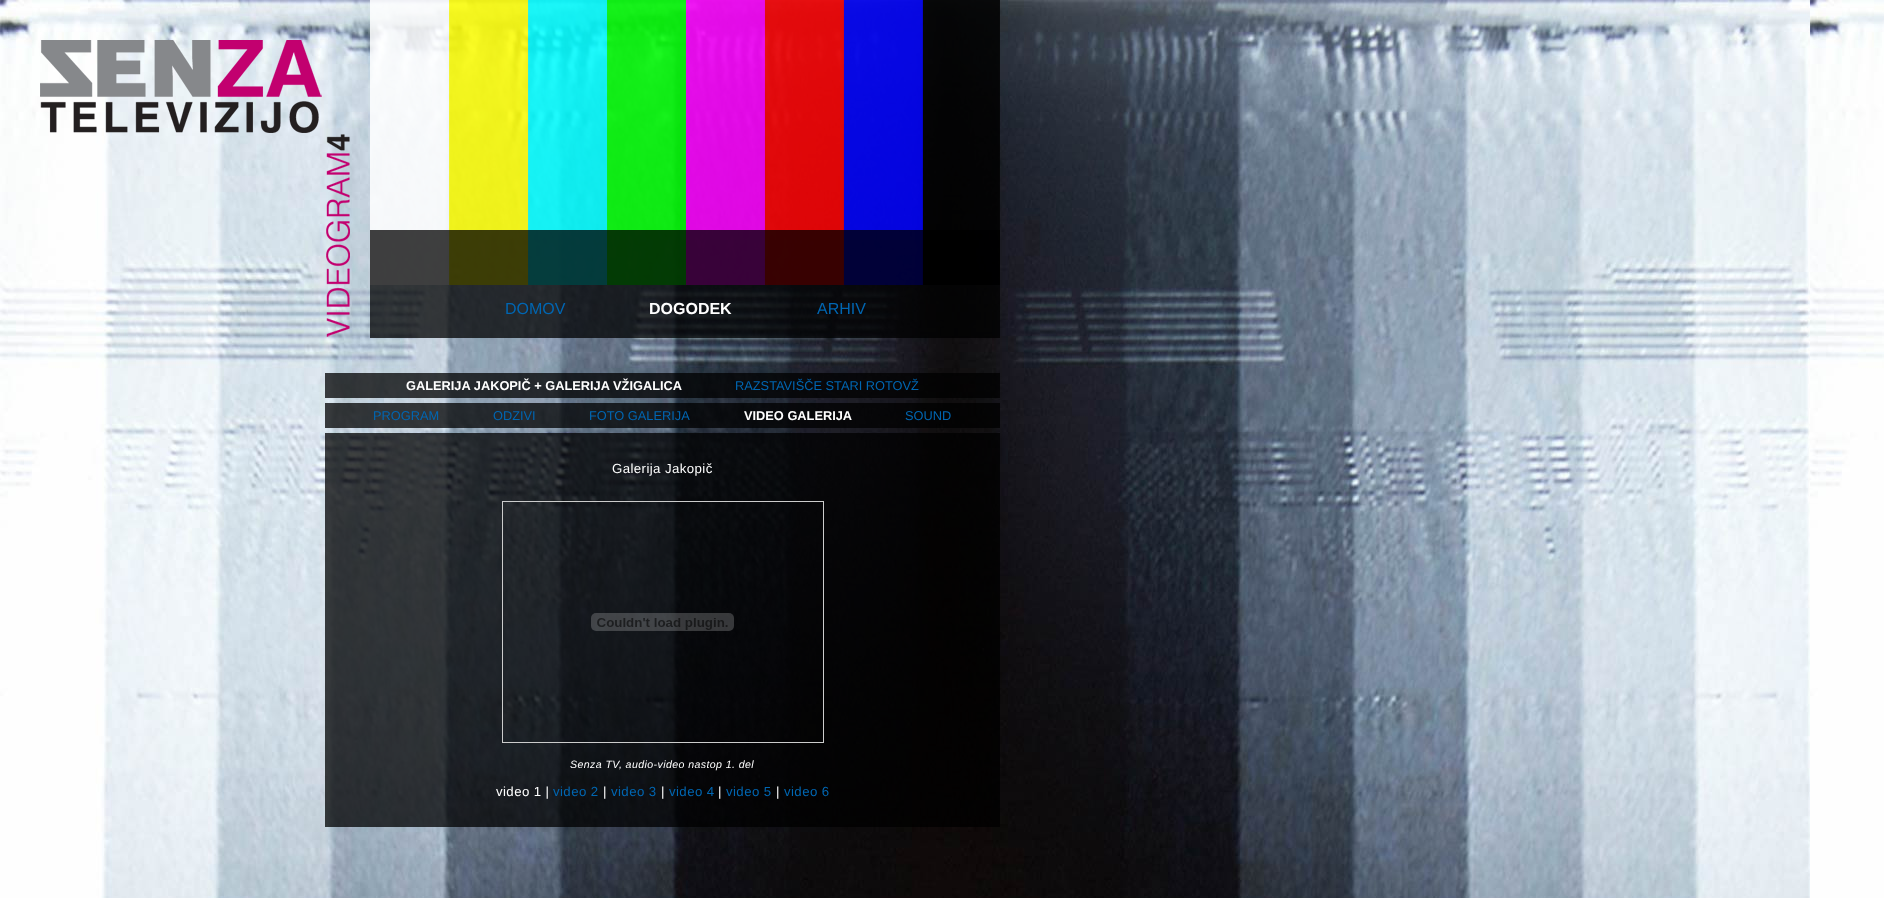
(async () => {
    const canvas = document.querySelector("canvas");
    canvas.width = 1884;
    canvas.height = 898;
    const context = canvas.getContext("2d");
    context.miterLimit = 4;
    context.fontKerning = "normal";
    function write(s, x, y, font, color) {
        context.font = font;
        context.fillStyle = color;
        context.fillText(s, x, y);
    }
    function block(x, y, w, h, color) {
        context.fillStyle = color;
        context.fillRect(x, y, w, h);
    }
    async function photo(src, x, y, w, h) {
        const img = new Image();
        img.src = src;
        await img.decode();
        context.drawImage(img, x, y, w, h);
    }

    block(0, 0, 1884, 898, "rgb(255, 255, 255)");
    await photo("media/1.png", 0, 0, 1884, 898);
    await photo("media/2.png", 40, 40, 310, 297);
    await photo("media/3.png", 370, 0, 630, 285);
    block(370, 230, 630, 108, "rgba(0, 0, 0, 0.75)");
    write("DOMOV", 505, 314, "16px Liberation Sans", "rgb(0, 102, 178)");
    write("DOGODEK", 649, 314, "bold 16px Liberation Sans", "rgb(255, 255, 255)");
    write("ARHIV", 817, 314, "16px Liberation Sans", "rgb(0, 102, 178)");
    block(325, 373, 675, 25, "rgba(0, 0, 0, 0.75)");
    write("GALERIJA JAKOPIČ + GALERIJA VŽIGALICA", 406, 390, "bold 12.8px Liberation Sans", "rgb(255, 255, 255)");
    write("RAZSTAVIŠČE STARI ROTOVŽ", 735, 390, "12.8px Liberation Sans", "rgb(0, 102, 178)");
    block(325, 403, 675, 25, "rgba(0, 0, 0, 0.75)");
    write("PROGRAM", 373, 420, "12.8px Liberation Sans", "rgb(0, 102, 178)");
    write("ODZIVI", 493, 420, "12.8px Liberation Sans", "rgb(0, 102, 178)");
    write("FOTO GALERIJA", 589, 420, "12.8px Liberation Sans", "rgb(0, 102, 178)");
    write("VIDEO GALERIJA", 744, 420, "bold 12.8px Liberation Sans", "rgb(255, 255, 255)");
    write("SOUND", 905, 420, "12.8px Liberation Sans", "rgb(0, 102, 178)");
    block(325, 433, 675, 394, "rgba(0, 0, 0, 0.75)");
    context.letterSpacing = "0.4px";
    write("Galerija Jakopič", 612, 473, "13.25px Liberation Sans", "rgb(255, 255, 255)");
    context.strokeStyle = "rgb(204, 204, 204)";
    context.strokeRect(502.5, 501.5, 321, 241);
    await photo("media/4.png", 591, 613, 143, 18);
    write("Senza TV, audio-video nastop 1. del", 570, 768, "italic 10.6px Liberation Sans", "rgb(255, 255, 255)");
    write("video 1 |", 496, 796, "13.25px Liberation Sans", "rgb(255, 255, 255)");
    write("video 2", 553, 796, "13.25px Liberation Sans", "rgb(0, 102, 178)");
    write("|", 603, 796, "13.25px Liberation Sans", "rgb(255, 255, 255)");
    write("video 3", 611, 796, "13.25px Liberation Sans", "rgb(0, 102, 178)");
    write("|", 661, 796, "13.25px Liberation Sans", "rgb(255, 255, 255)");
    write("video 4", 669, 796, "13.25px Liberation Sans", "rgb(0, 102, 178)");
    write("|", 718, 796, "13.25px Liberation Sans", "rgb(255, 255, 255)");
    write("video 5", 726, 796, "13.25px Liberation Sans", "rgb(0, 102, 178)");
    write("|", 776, 796, "13.25px Liberation Sans", "rgb(255, 255, 255)");
    write("video 6", 784, 796, "13.25px Liberation Sans", "rgb(0, 102, 178)");
})();
